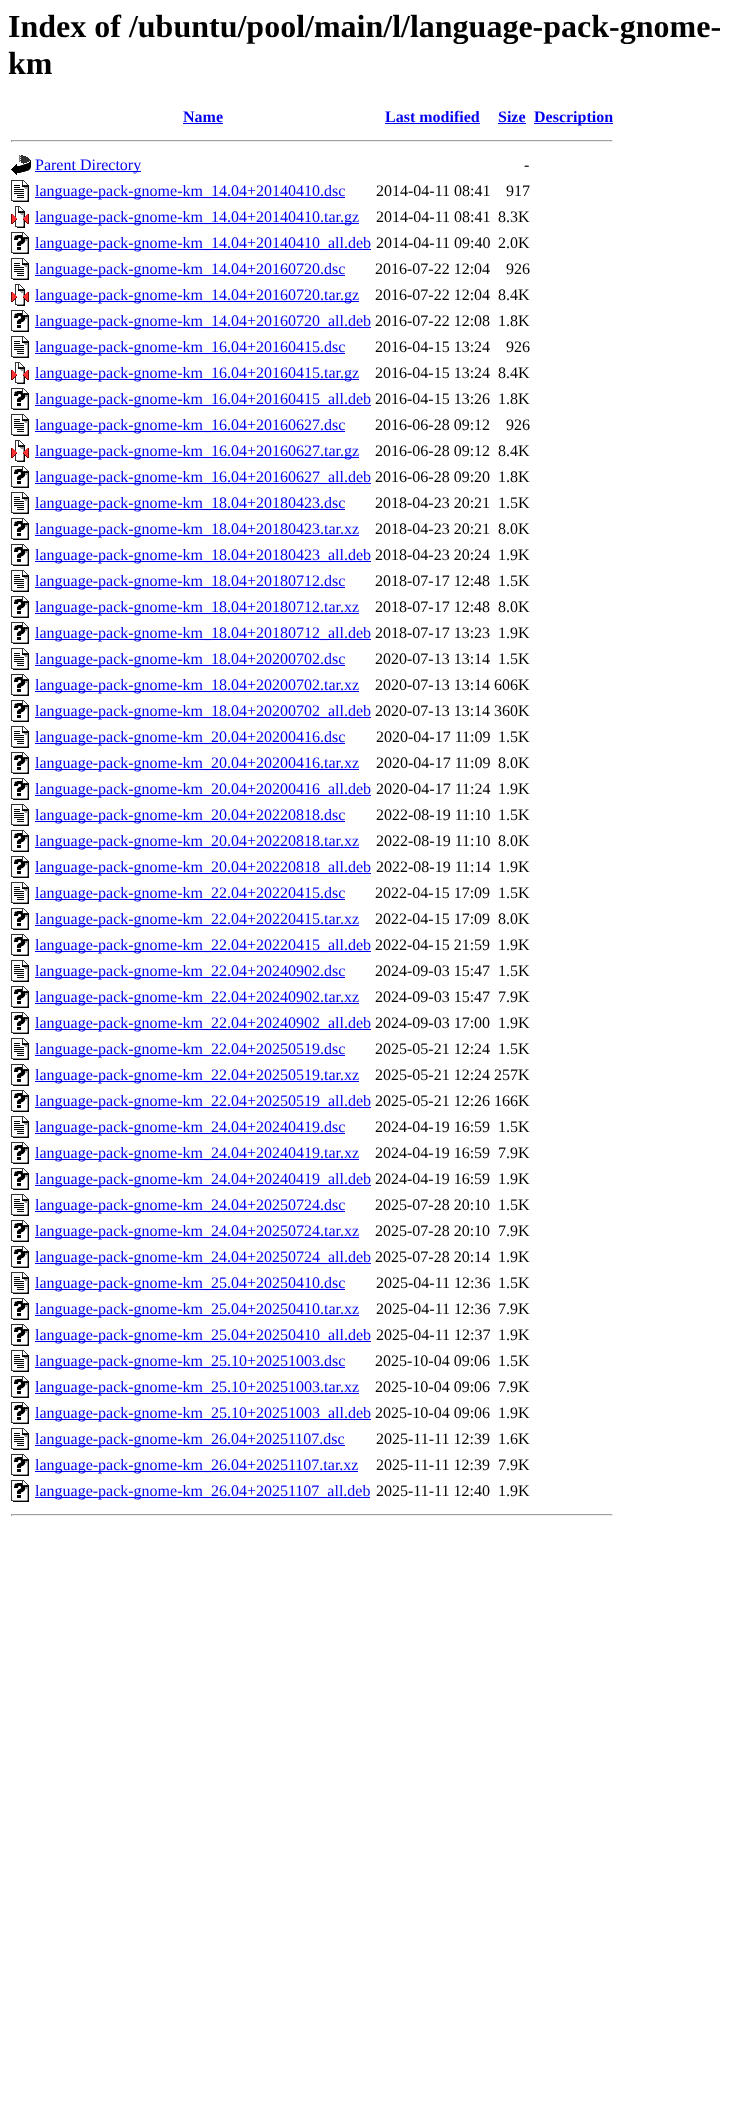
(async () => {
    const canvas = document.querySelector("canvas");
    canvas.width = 737;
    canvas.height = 2101;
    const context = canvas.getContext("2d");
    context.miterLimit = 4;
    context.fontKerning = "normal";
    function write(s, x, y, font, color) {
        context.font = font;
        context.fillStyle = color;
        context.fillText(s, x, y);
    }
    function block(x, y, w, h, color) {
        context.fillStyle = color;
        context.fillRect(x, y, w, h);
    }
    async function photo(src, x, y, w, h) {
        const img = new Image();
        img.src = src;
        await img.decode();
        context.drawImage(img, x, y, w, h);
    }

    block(0, 0, 737, 2101, "rgb(255, 255, 255)");
    write("Index of /ubuntu/pool/main/l/language-pack-gnome-", 8, 37, "bold 32px Liberation Serif", "rgb(0, 0, 0)");
    write("km", 8, 74, "bold 32px Liberation Serif", "rgb(0, 0, 0)");
    write("Name", 183, 122, "bold 16px Liberation Serif", "rgb(0, 0, 238)");
    block(183, 123, 40, 1, "rgb(0, 0, 238)");
    write("Last modified", 385, 122, "bold 16px Liberation Serif", "rgb(0, 0, 238)");
    block(385, 123, 95, 1, "rgb(0, 0, 238)");
    write("Size", 498, 122, "bold 16px Liberation Serif", "rgb(0, 0, 238)");
    block(498, 123, 28, 1, "rgb(0, 0, 238)");
    block(534, 123, 79, 1, "rgb(0, 0, 238)");
    write("Description", 534, 122, "bold 16px Liberation Serif", "rgb(0, 0, 238)");
    block(11, 140, 602, 1, "rgb(159, 159, 159)");
    block(612, 140, 1, 2, "rgb(238, 238, 238)");
    block(11, 141, 602, 1, "rgb(238, 238, 238)");
    block(11, 140, 1, 2, "rgb(159, 159, 159)");
    await photo("media/1.png", 11, 155, 20, 20);
    block(35, 171, 106, 1, "rgb(0, 0, 238)");
    write("Parent Directory", 35, 170, "16px Liberation Serif", "rgb(0, 0, 238)");
    write("-", 524, 170, "16px Liberation Serif", "rgb(0, 0, 0)");
    await photo("media/2.png", 11, 180, 18, 22);
    block(35, 197, 310, 1, "rgb(0, 0, 238)");
    write("language-pack-gnome-km_14.04+20140410.dsc", 35, 196, "16px Liberation Serif", "rgb(0, 0, 238)");
    write("2014-04-11 08:41", 376, 196, "16px Liberation Serif", "rgb(0, 0, 0)");
    write("917", 506, 196, "16px Liberation Serif", "rgb(0, 0, 0)");
    await photo("media/3.png", 11, 206, 18, 22);
    block(35, 223, 324, 1, "rgb(0, 0, 238)");
    write("language-pack-gnome-km_14.04+20140410.tar.gz", 35, 222, "16px Liberation Serif", "rgb(0, 0, 238)");
    write("2014-04-11 08:41", 376, 222, "16px Liberation Serif", "rgb(0, 0, 0)");
    write("8.3K", 498, 222, "16px Liberation Serif", "rgb(0, 0, 0)");
    await photo("media/4.png", 11, 232, 18, 22);
    block(35, 249, 336, 1, "rgb(0, 0, 238)");
    write("language-pack-gnome-km_14.04+20140410_all.deb", 35, 248, "16px Liberation Serif", "rgb(0, 0, 238)");
    write("2014-04-11 09:40", 376, 248, "16px Liberation Serif", "rgb(0, 0, 0)");
    write("2.0K", 498, 248, "16px Liberation Serif", "rgb(0, 0, 0)");
    await photo("media/2.png", 11, 258, 18, 22);
    block(35, 275, 310, 1, "rgb(0, 0, 238)");
    write("language-pack-gnome-km_14.04+20160720.dsc", 35, 274, "16px Liberation Serif", "rgb(0, 0, 238)");
    write("2016-07-22 12:04", 375, 274, "16px Liberation Serif", "rgb(0, 0, 0)");
    write("926", 506, 274, "16px Liberation Serif", "rgb(0, 0, 0)");
    await photo("media/3.png", 11, 284, 18, 22);
    block(35, 301, 324, 1, "rgb(0, 0, 238)");
    write("language-pack-gnome-km_14.04+20160720.tar.gz", 35, 300, "16px Liberation Serif", "rgb(0, 0, 238)");
    write("2016-07-22 12:04", 375, 300, "16px Liberation Serif", "rgb(0, 0, 0)");
    write("8.4K", 498, 300, "16px Liberation Serif", "rgb(0, 0, 0)");
    await photo("media/4.png", 11, 310, 18, 22);
    block(35, 327, 336, 1, "rgb(0, 0, 238)");
    write("language-pack-gnome-km_14.04+20160720_all.deb", 35, 326, "16px Liberation Serif", "rgb(0, 0, 238)");
    write("2016-07-22 12:08", 375, 326, "16px Liberation Serif", "rgb(0, 0, 0)");
    write("1.8K", 498, 326, "16px Liberation Serif", "rgb(0, 0, 0)");
    await photo("media/2.png", 11, 336, 18, 22);
    block(35, 353, 310, 1, "rgb(0, 0, 238)");
    write("language-pack-gnome-km_16.04+20160415.dsc", 35, 352, "16px Liberation Serif", "rgb(0, 0, 238)");
    write("2016-04-15 13:24", 375, 352, "16px Liberation Serif", "rgb(0, 0, 0)");
    write("926", 506, 352, "16px Liberation Serif", "rgb(0, 0, 0)");
    await photo("media/3.png", 11, 362, 18, 22);
    block(35, 379, 324, 1, "rgb(0, 0, 238)");
    write("language-pack-gnome-km_16.04+20160415.tar.gz", 35, 378, "16px Liberation Serif", "rgb(0, 0, 238)");
    write("2016-04-15 13:24", 375, 378, "16px Liberation Serif", "rgb(0, 0, 0)");
    write("8.4K", 498, 378, "16px Liberation Serif", "rgb(0, 0, 0)");
    await photo("media/4.png", 11, 388, 18, 22);
    block(35, 405, 336, 1, "rgb(0, 0, 238)");
    write("language-pack-gnome-km_16.04+20160415_all.deb", 35, 404, "16px Liberation Serif", "rgb(0, 0, 238)");
    write("2016-04-15 13:26", 375, 404, "16px Liberation Serif", "rgb(0, 0, 0)");
    write("1.8K", 498, 404, "16px Liberation Serif", "rgb(0, 0, 0)");
    await photo("media/2.png", 11, 414, 18, 22);
    block(35, 431, 310, 1, "rgb(0, 0, 238)");
    write("language-pack-gnome-km_16.04+20160627.dsc", 35, 430, "16px Liberation Serif", "rgb(0, 0, 238)");
    write("2016-06-28 09:12", 375, 430, "16px Liberation Serif", "rgb(0, 0, 0)");
    write("926", 506, 430, "16px Liberation Serif", "rgb(0, 0, 0)");
    await photo("media/3.png", 11, 440, 18, 22);
    block(35, 457, 324, 1, "rgb(0, 0, 238)");
    write("language-pack-gnome-km_16.04+20160627.tar.gz", 35, 456, "16px Liberation Serif", "rgb(0, 0, 238)");
    write("2016-06-28 09:12", 375, 456, "16px Liberation Serif", "rgb(0, 0, 0)");
    write("8.4K", 498, 456, "16px Liberation Serif", "rgb(0, 0, 0)");
    await photo("media/4.png", 11, 466, 18, 22);
    block(35, 483, 336, 1, "rgb(0, 0, 238)");
    write("language-pack-gnome-km_16.04+20160627_all.deb", 35, 482, "16px Liberation Serif", "rgb(0, 0, 238)");
    write("2016-06-28 09:20", 375, 482, "16px Liberation Serif", "rgb(0, 0, 0)");
    write("1.8K", 498, 482, "16px Liberation Serif", "rgb(0, 0, 0)");
    await photo("media/2.png", 11, 492, 18, 22);
    block(35, 509, 310, 1, "rgb(0, 0, 238)");
    write("language-pack-gnome-km_18.04+20180423.dsc", 35, 508, "16px Liberation Serif", "rgb(0, 0, 238)");
    write("2018-04-23 20:21", 375, 508, "16px Liberation Serif", "rgb(0, 0, 0)");
    write("1.5K", 498, 508, "16px Liberation Serif", "rgb(0, 0, 0)");
    await photo("media/4.png", 11, 518, 18, 22);
    block(35, 535, 324, 1, "rgb(0, 0, 238)");
    write("language-pack-gnome-km_18.04+20180423.tar.xz", 35, 534, "16px Liberation Serif", "rgb(0, 0, 238)");
    write("2018-04-23 20:21", 375, 534, "16px Liberation Serif", "rgb(0, 0, 0)");
    write("8.0K", 498, 534, "16px Liberation Serif", "rgb(0, 0, 0)");
    await photo("media/4.png", 11, 544, 18, 22);
    block(35, 561, 336, 1, "rgb(0, 0, 238)");
    write("language-pack-gnome-km_18.04+20180423_all.deb", 35, 560, "16px Liberation Serif", "rgb(0, 0, 238)");
    write("2018-04-23 20:24", 375, 560, "16px Liberation Serif", "rgb(0, 0, 0)");
    write("1.9K", 498, 560, "16px Liberation Serif", "rgb(0, 0, 0)");
    await photo("media/2.png", 11, 570, 18, 22);
    block(35, 587, 310, 1, "rgb(0, 0, 238)");
    write("language-pack-gnome-km_18.04+20180712.dsc", 35, 586, "16px Liberation Serif", "rgb(0, 0, 238)");
    write("2018-07-17 12:48", 375, 586, "16px Liberation Serif", "rgb(0, 0, 0)");
    write("1.5K", 498, 586, "16px Liberation Serif", "rgb(0, 0, 0)");
    await photo("media/4.png", 11, 596, 18, 22);
    block(35, 613, 324, 1, "rgb(0, 0, 238)");
    write("language-pack-gnome-km_18.04+20180712.tar.xz", 35, 612, "16px Liberation Serif", "rgb(0, 0, 238)");
    write("2018-07-17 12:48", 375, 612, "16px Liberation Serif", "rgb(0, 0, 0)");
    write("8.0K", 498, 612, "16px Liberation Serif", "rgb(0, 0, 0)");
    await photo("media/4.png", 11, 622, 18, 22);
    block(35, 639, 336, 1, "rgb(0, 0, 238)");
    write("language-pack-gnome-km_18.04+20180712_all.deb", 35, 638, "16px Liberation Serif", "rgb(0, 0, 238)");
    write("2018-07-17 13:23", 375, 638, "16px Liberation Serif", "rgb(0, 0, 0)");
    write("1.9K", 498, 638, "16px Liberation Serif", "rgb(0, 0, 0)");
    await photo("media/2.png", 11, 648, 18, 22);
    block(35, 665, 310, 1, "rgb(0, 0, 238)");
    write("language-pack-gnome-km_18.04+20200702.dsc", 35, 664, "16px Liberation Serif", "rgb(0, 0, 238)");
    write("2020-07-13 13:14", 375, 664, "16px Liberation Serif", "rgb(0, 0, 0)");
    write("1.5K", 498, 664, "16px Liberation Serif", "rgb(0, 0, 0)");
    await photo("media/4.png", 11, 674, 18, 22);
    block(35, 691, 324, 1, "rgb(0, 0, 238)");
    write("language-pack-gnome-km_18.04+20200702.tar.xz", 35, 690, "16px Liberation Serif", "rgb(0, 0, 238)");
    write("2020-07-13 13:14 606K", 375, 690, "16px Liberation Serif", "rgb(0, 0, 0)");
    await photo("media/4.png", 11, 700, 18, 22);
    block(35, 717, 336, 1, "rgb(0, 0, 238)");
    write("language-pack-gnome-km_18.04+20200702_all.deb", 35, 716, "16px Liberation Serif", "rgb(0, 0, 238)");
    write("2020-07-13 13:14 360K", 375, 716, "16px Liberation Serif", "rgb(0, 0, 0)");
    await photo("media/2.png", 11, 726, 18, 22);
    block(35, 743, 310, 1, "rgb(0, 0, 238)");
    write("language-pack-gnome-km_20.04+20200416.dsc", 35, 742, "16px Liberation Serif", "rgb(0, 0, 238)");
    write("2020-04-17 11:09", 376, 742, "16px Liberation Serif", "rgb(0, 0, 0)");
    write("1.5K", 498, 742, "16px Liberation Serif", "rgb(0, 0, 0)");
    await photo("media/4.png", 11, 752, 18, 22);
    block(35, 769, 324, 1, "rgb(0, 0, 238)");
    write("language-pack-gnome-km_20.04+20200416.tar.xz", 35, 768, "16px Liberation Serif", "rgb(0, 0, 238)");
    write("2020-04-17 11:09", 376, 768, "16px Liberation Serif", "rgb(0, 0, 0)");
    write("8.0K", 498, 768, "16px Liberation Serif", "rgb(0, 0, 0)");
    await photo("media/4.png", 11, 778, 18, 22);
    block(35, 795, 336, 1, "rgb(0, 0, 238)");
    write("language-pack-gnome-km_20.04+20200416_all.deb", 35, 794, "16px Liberation Serif", "rgb(0, 0, 238)");
    write("2020-04-17 11:24", 376, 794, "16px Liberation Serif", "rgb(0, 0, 0)");
    write("1.9K", 498, 794, "16px Liberation Serif", "rgb(0, 0, 0)");
    await photo("media/2.png", 11, 804, 18, 22);
    block(35, 821, 310, 1, "rgb(0, 0, 238)");
    write("language-pack-gnome-km_20.04+20220818.dsc", 35, 820, "16px Liberation Serif", "rgb(0, 0, 238)");
    write("2022-08-19 11:10", 376, 820, "16px Liberation Serif", "rgb(0, 0, 0)");
    write("1.5K", 498, 820, "16px Liberation Serif", "rgb(0, 0, 0)");
    await photo("media/4.png", 11, 830, 18, 22);
    block(35, 847, 324, 1, "rgb(0, 0, 238)");
    write("language-pack-gnome-km_20.04+20220818.tar.xz", 35, 846, "16px Liberation Serif", "rgb(0, 0, 238)");
    write("2022-08-19 11:10", 376, 846, "16px Liberation Serif", "rgb(0, 0, 0)");
    write("8.0K", 498, 846, "16px Liberation Serif", "rgb(0, 0, 0)");
    await photo("media/4.png", 11, 856, 18, 22);
    block(35, 873, 336, 1, "rgb(0, 0, 238)");
    write("language-pack-gnome-km_20.04+20220818_all.deb", 35, 872, "16px Liberation Serif", "rgb(0, 0, 238)");
    write("2022-08-19 11:14", 376, 872, "16px Liberation Serif", "rgb(0, 0, 0)");
    write("1.9K", 498, 872, "16px Liberation Serif", "rgb(0, 0, 0)");
    await photo("media/2.png", 11, 882, 18, 22);
    block(35, 899, 310, 1, "rgb(0, 0, 238)");
    write("language-pack-gnome-km_22.04+20220415.dsc", 35, 898, "16px Liberation Serif", "rgb(0, 0, 238)");
    write("2022-04-15 17:09", 375, 898, "16px Liberation Serif", "rgb(0, 0, 0)");
    write("1.5K", 498, 898, "16px Liberation Serif", "rgb(0, 0, 0)");
    await photo("media/4.png", 11, 908, 18, 22);
    block(35, 925, 324, 1, "rgb(0, 0, 238)");
    write("language-pack-gnome-km_22.04+20220415.tar.xz", 35, 924, "16px Liberation Serif", "rgb(0, 0, 238)");
    write("2022-04-15 17:09", 375, 924, "16px Liberation Serif", "rgb(0, 0, 0)");
    write("8.0K", 498, 924, "16px Liberation Serif", "rgb(0, 0, 0)");
    await photo("media/4.png", 11, 934, 18, 22);
    block(35, 951, 336, 1, "rgb(0, 0, 238)");
    write("language-pack-gnome-km_22.04+20220415_all.deb", 35, 950, "16px Liberation Serif", "rgb(0, 0, 238)");
    write("2022-04-15 21:59", 375, 950, "16px Liberation Serif", "rgb(0, 0, 0)");
    write("1.9K", 498, 950, "16px Liberation Serif", "rgb(0, 0, 0)");
    await photo("media/2.png", 11, 960, 18, 22);
    block(35, 977, 310, 1, "rgb(0, 0, 238)");
    write("language-pack-gnome-km_22.04+20240902.dsc", 35, 976, "16px Liberation Serif", "rgb(0, 0, 238)");
    write("2024-09-03 15:47", 375, 976, "16px Liberation Serif", "rgb(0, 0, 0)");
    write("1.5K", 498, 976, "16px Liberation Serif", "rgb(0, 0, 0)");
    await photo("media/4.png", 11, 986, 18, 22);
    block(35, 1003, 324, 1, "rgb(0, 0, 238)");
    write("language-pack-gnome-km_22.04+20240902.tar.xz", 35, 1002, "16px Liberation Serif", "rgb(0, 0, 238)");
    write("2024-09-03 15:47", 375, 1002, "16px Liberation Serif", "rgb(0, 0, 0)");
    write("7.9K", 498, 1002, "16px Liberation Serif", "rgb(0, 0, 0)");
    await photo("media/4.png", 11, 1012, 18, 22);
    block(35, 1029, 336, 1, "rgb(0, 0, 238)");
    write("language-pack-gnome-km_22.04+20240902_all.deb", 35, 1028, "16px Liberation Serif", "rgb(0, 0, 238)");
    write("2024-09-03 17:00", 375, 1028, "16px Liberation Serif", "rgb(0, 0, 0)");
    write("1.9K", 498, 1028, "16px Liberation Serif", "rgb(0, 0, 0)");
    await photo("media/2.png", 11, 1038, 18, 22);
    block(35, 1055, 310, 1, "rgb(0, 0, 238)");
    write("language-pack-gnome-km_22.04+20250519.dsc", 35, 1054, "16px Liberation Serif", "rgb(0, 0, 238)");
    write("2025-05-21 12:24", 375, 1054, "16px Liberation Serif", "rgb(0, 0, 0)");
    write("1.5K", 498, 1054, "16px Liberation Serif", "rgb(0, 0, 0)");
    await photo("media/4.png", 11, 1064, 18, 22);
    block(35, 1081, 324, 1, "rgb(0, 0, 238)");
    write("language-pack-gnome-km_22.04+20250519.tar.xz", 35, 1080, "16px Liberation Serif", "rgb(0, 0, 238)");
    write("2025-05-21 12:24 257K", 375, 1080, "16px Liberation Serif", "rgb(0, 0, 0)");
    await photo("media/4.png", 11, 1090, 18, 22);
    block(35, 1107, 336, 1, "rgb(0, 0, 238)");
    write("language-pack-gnome-km_22.04+20250519_all.deb", 35, 1106, "16px Liberation Serif", "rgb(0, 0, 238)");
    write("2025-05-21 12:26 166K", 375, 1106, "16px Liberation Serif", "rgb(0, 0, 0)");
    await photo("media/2.png", 11, 1116, 18, 22);
    block(35, 1133, 310, 1, "rgb(0, 0, 238)");
    write("language-pack-gnome-km_24.04+20240419.dsc", 35, 1132, "16px Liberation Serif", "rgb(0, 0, 238)");
    write("2024-04-19 16:59", 375, 1132, "16px Liberation Serif", "rgb(0, 0, 0)");
    write("1.5K", 498, 1132, "16px Liberation Serif", "rgb(0, 0, 0)");
    await photo("media/4.png", 11, 1142, 18, 22);
    block(35, 1159, 324, 1, "rgb(0, 0, 238)");
    write("language-pack-gnome-km_24.04+20240419.tar.xz", 35, 1158, "16px Liberation Serif", "rgb(0, 0, 238)");
    write("2024-04-19 16:59", 375, 1158, "16px Liberation Serif", "rgb(0, 0, 0)");
    write("7.9K", 498, 1158, "16px Liberation Serif", "rgb(0, 0, 0)");
    await photo("media/4.png", 11, 1168, 18, 22);
    block(35, 1185, 336, 1, "rgb(0, 0, 238)");
    write("language-pack-gnome-km_24.04+20240419_all.deb", 35, 1184, "16px Liberation Serif", "rgb(0, 0, 238)");
    write("2024-04-19 16:59", 375, 1184, "16px Liberation Serif", "rgb(0, 0, 0)");
    write("1.9K", 498, 1184, "16px Liberation Serif", "rgb(0, 0, 0)");
    await photo("media/2.png", 11, 1194, 18, 22);
    block(35, 1211, 310, 1, "rgb(0, 0, 238)");
    write("language-pack-gnome-km_24.04+20250724.dsc", 35, 1210, "16px Liberation Serif", "rgb(0, 0, 238)");
    write("2025-07-28 20:10", 375, 1210, "16px Liberation Serif", "rgb(0, 0, 0)");
    write("1.5K", 498, 1210, "16px Liberation Serif", "rgb(0, 0, 0)");
    await photo("media/4.png", 11, 1220, 18, 22);
    block(35, 1237, 324, 1, "rgb(0, 0, 238)");
    write("language-pack-gnome-km_24.04+20250724.tar.xz", 35, 1236, "16px Liberation Serif", "rgb(0, 0, 238)");
    write("2025-07-28 20:10", 375, 1236, "16px Liberation Serif", "rgb(0, 0, 0)");
    write("7.9K", 498, 1236, "16px Liberation Serif", "rgb(0, 0, 0)");
    await photo("media/4.png", 11, 1246, 18, 22);
    block(35, 1263, 336, 1, "rgb(0, 0, 238)");
    write("language-pack-gnome-km_24.04+20250724_all.deb", 35, 1262, "16px Liberation Serif", "rgb(0, 0, 238)");
    write("2025-07-28 20:14", 375, 1262, "16px Liberation Serif", "rgb(0, 0, 0)");
    write("1.9K", 498, 1262, "16px Liberation Serif", "rgb(0, 0, 0)");
    await photo("media/2.png", 11, 1272, 18, 22);
    block(35, 1289, 310, 1, "rgb(0, 0, 238)");
    write("language-pack-gnome-km_25.04+20250410.dsc", 35, 1288, "16px Liberation Serif", "rgb(0, 0, 238)");
    write("2025-04-11 12:36", 376, 1288, "16px Liberation Serif", "rgb(0, 0, 0)");
    write("1.5K", 498, 1288, "16px Liberation Serif", "rgb(0, 0, 0)");
    await photo("media/4.png", 11, 1298, 18, 22);
    block(35, 1315, 324, 1, "rgb(0, 0, 238)");
    write("language-pack-gnome-km_25.04+20250410.tar.xz", 35, 1314, "16px Liberation Serif", "rgb(0, 0, 238)");
    write("2025-04-11 12:36", 376, 1314, "16px Liberation Serif", "rgb(0, 0, 0)");
    write("7.9K", 498, 1314, "16px Liberation Serif", "rgb(0, 0, 0)");
    await photo("media/4.png", 11, 1324, 18, 22);
    block(35, 1341, 336, 1, "rgb(0, 0, 238)");
    write("language-pack-gnome-km_25.04+20250410_all.deb", 35, 1340, "16px Liberation Serif", "rgb(0, 0, 238)");
    write("2025-04-11 12:37", 376, 1340, "16px Liberation Serif", "rgb(0, 0, 0)");
    write("1.9K", 498, 1340, "16px Liberation Serif", "rgb(0, 0, 0)");
    await photo("media/2.png", 11, 1350, 18, 22);
    block(35, 1367, 310, 1, "rgb(0, 0, 238)");
    write("language-pack-gnome-km_25.10+20251003.dsc", 35, 1366, "16px Liberation Serif", "rgb(0, 0, 238)");
    write("2025-10-04 09:06", 375, 1366, "16px Liberation Serif", "rgb(0, 0, 0)");
    write("1.5K", 498, 1366, "16px Liberation Serif", "rgb(0, 0, 0)");
    await photo("media/4.png", 11, 1376, 18, 22);
    block(35, 1393, 324, 1, "rgb(0, 0, 238)");
    write("language-pack-gnome-km_25.10+20251003.tar.xz", 35, 1392, "16px Liberation Serif", "rgb(0, 0, 238)");
    write("2025-10-04 09:06", 375, 1392, "16px Liberation Serif", "rgb(0, 0, 0)");
    write("7.9K", 498, 1392, "16px Liberation Serif", "rgb(0, 0, 0)");
    await photo("media/4.png", 11, 1402, 18, 22);
    block(35, 1419, 336, 1, "rgb(0, 0, 238)");
    write("language-pack-gnome-km_25.10+20251003_all.deb", 35, 1418, "16px Liberation Serif", "rgb(0, 0, 238)");
    write("2025-10-04 09:06", 375, 1418, "16px Liberation Serif", "rgb(0, 0, 0)");
    write("1.9K", 498, 1418, "16px Liberation Serif", "rgb(0, 0, 0)");
    await photo("media/2.png", 11, 1428, 18, 22);
    block(35, 1445, 310, 1, "rgb(0, 0, 238)");
    write("language-pack-gnome-km_26.04+20251107.dsc", 35, 1444, "16px Liberation Serif", "rgb(0, 0, 238)");
    write("2025-11-11 12:39", 376, 1444, "16px Liberation Serif", "rgb(0, 0, 0)");
    write("1.6K", 498, 1444, "16px Liberation Serif", "rgb(0, 0, 0)");
    await photo("media/4.png", 11, 1454, 18, 22);
    block(35, 1471, 323, 1, "rgb(0, 0, 238)");
    write("language-pack-gnome-km_26.04+20251107.tar.xz", 35, 1470, "16px Liberation Serif", "rgb(0, 0, 238)");
    write("2025-11-11 12:39", 376, 1470, "16px Liberation Serif", "rgb(0, 0, 0)");
    write("7.9K", 498, 1470, "16px Liberation Serif", "rgb(0, 0, 0)");
    await photo("media/4.png", 11, 1480, 18, 22);
    block(35, 1497, 335, 1, "rgb(0, 0, 238)");
    write("language-pack-gnome-km_26.04+20251107_all.deb", 35, 1496, "16px Liberation Serif", "rgb(0, 0, 238)");
    write("2025-11-11 12:40", 376, 1496, "16px Liberation Serif", "rgb(0, 0, 0)");
    write("1.9K", 498, 1496, "16px Liberation Serif", "rgb(0, 0, 0)");
    block(11, 1514, 602, 1, "rgb(159, 159, 159)");
    block(612, 1514, 1, 2, "rgb(238, 238, 238)");
    block(11, 1515, 602, 1, "rgb(238, 238, 238)");
    block(11, 1514, 1, 2, "rgb(159, 159, 159)");
})();
